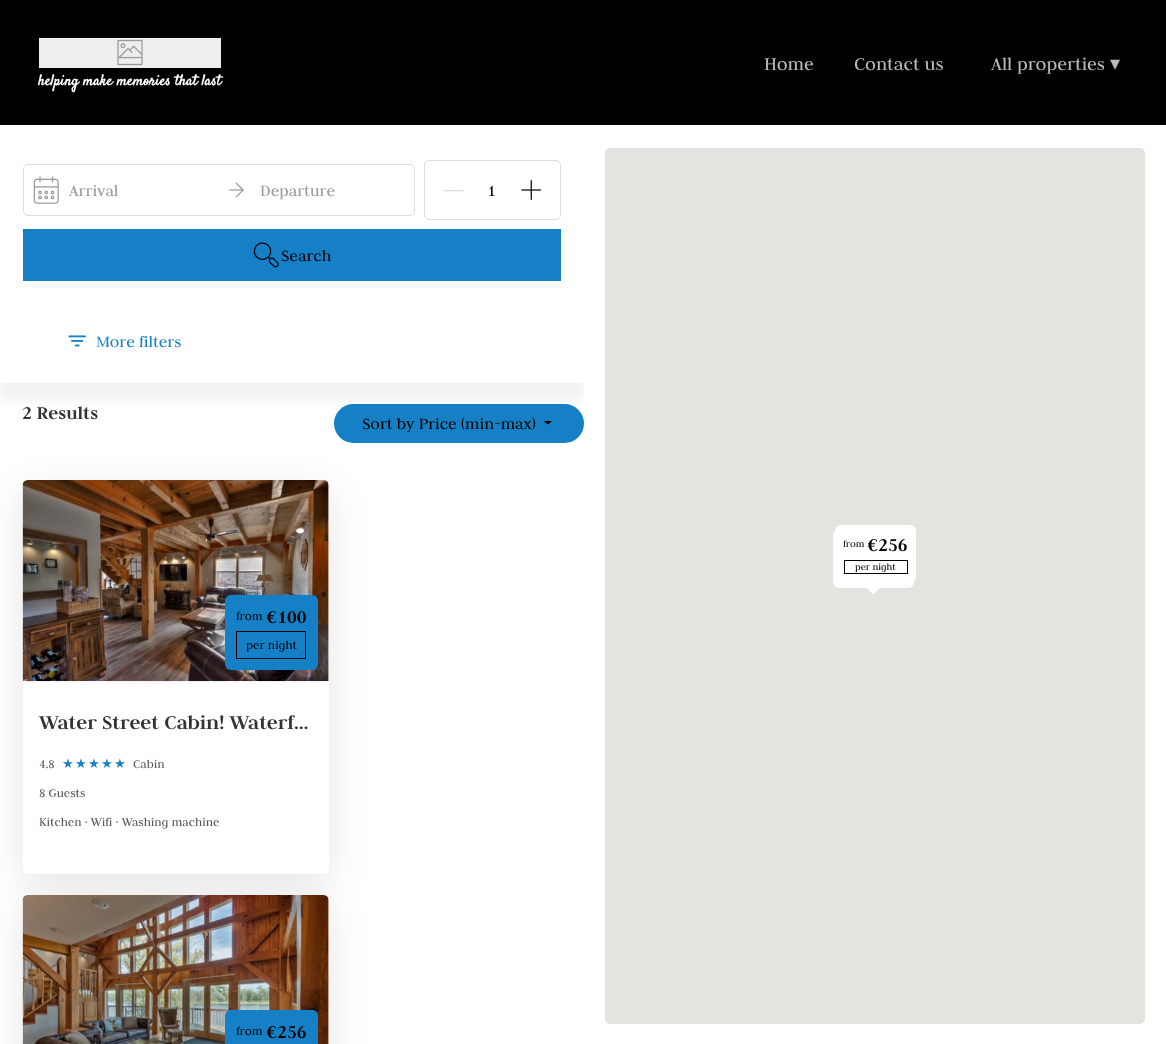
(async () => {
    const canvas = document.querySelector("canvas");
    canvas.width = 1166;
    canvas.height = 1044;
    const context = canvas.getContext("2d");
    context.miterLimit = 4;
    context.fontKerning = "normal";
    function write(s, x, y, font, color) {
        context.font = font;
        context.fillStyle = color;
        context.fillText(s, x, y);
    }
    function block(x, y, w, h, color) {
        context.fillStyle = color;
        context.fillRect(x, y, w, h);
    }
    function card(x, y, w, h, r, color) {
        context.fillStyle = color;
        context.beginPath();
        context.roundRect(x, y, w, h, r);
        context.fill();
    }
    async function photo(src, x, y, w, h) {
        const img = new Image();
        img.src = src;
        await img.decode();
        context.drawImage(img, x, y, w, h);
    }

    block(0, 0, 1166, 1044, "rgb(255, 255, 255)");
    block(0, 0, 1166, 125, "rgb(0, 0, 0)");
    write("Home", 764, 70, "20px Judson", "rgb(187, 187, 187)");
    write("Contact us", 854, 70, "20px Judson", "rgb(187, 187, 187)");
    write("All properties", 991, 70, "20px Judson", "rgb(187, 187, 187)");
    write("▾", 1110, 70, "20px DejaVu Sans", "rgb(187, 187, 187)");
    block(39, 38, 182, 30, "rgb(238, 238, 238)");
    await photo("media/1.png", 117, 39, 26, 27);
    write("helping make memories that last", 38, 85, "bold 15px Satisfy", "rgb(255, 255, 255)");
    context.save();
    context.beginPath();
    context.rect(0, 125, 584, 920);
    context.clip();
    context.beginPath();
    context.moveTo(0, 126);
    context.lineTo(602, 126);
    context.lineTo(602, 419);
    context.lineTo(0, 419);
    context.closePath();
    context.moveTo(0, 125);
    context.lineTo(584, 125);
    context.lineTo(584, 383);
    context.lineTo(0, 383);
    context.closePath();
    context.clip("evenodd");
    context.fillStyle = "rgba(0, 0, 0, 0.05)";
    context.filter = "blur(5.5px)";
    context.beginPath();
    context.rect(0, 144, 584, 257);
    context.fill();
    context.filter = "none";
    context.restore();
    context.beginPath();
    context.roundRect(23.5, 164.5, 391, 51, 4.5);
    context.strokeStyle = "rgb(221, 221, 221)";
    context.stroke();
    await photo("media/2.png", 33, 176, 26, 28);
    write("Arrival", 69, 196, "17.5px Judson", "rgb(153, 153, 153)");
    await photo("media/3.png", 228, 182, 16, 16);
    write("Departure", 260, 196, "17.5px Judson", "rgb(153, 153, 153)");
    context.beginPath();
    context.roundRect(424.5, 160.5, 136, 59, 4.5);
    context.stroke();
    await photo("media/4.png", 443, 190, 21, 2);
    write("1", 487, 196, "17.5px Judson", "rgb(0, 0, 0)");
    await photo("media/5.png", 521, 180, 21, 20);
    block(23, 229, 538, 52, "rgb(22, 128, 199)");
    await photo("media/6.png", 253, 242, 26, 26);
    write("Search", 281, 261, "17.5px Judson", "rgb(0, 0, 0)");
    await photo("media/7.png", 68, 335, 18, 12);
    write("More filters", 96, 347, "17.5px Judson", "rgb(22, 128, 199)");
    write("2 Results", 22, 419, "bold 20px Judson", "rgb(51, 51, 51)");
    card(334, 404, 250, 39, 19.5, "rgb(22, 128, 199)");
    write("Sort by Price (min-max)", 362, 429, "17.5px Judson", "rgb(0, 0, 0)");
    context.beginPath();
    context.moveTo(552, 421);
    context.lineTo(548, 424.5);
    context.lineTo(543.5, 421);
    context.closePath();
    context.fill();
    context.fillStyle = "rgba(0, 0, 0, 0.1)";
    context.filter = "blur(19px)";
    context.beginPath();
    context.roundRect(23, 490, 306, 394, 5);
    context.fill();
    context.filter = "none";
    card(23, 480, 306, 394, 5, "rgb(255, 255, 255)");
    await photo("media/8.png", 22, 480, 307, 202);
    card(225, 595, 93, 75, 6, "rgb(22, 128, 199)");
    write("from", 236, 620, "13.1px Judson", "rgb(0, 0, 0)");
    write("€100", 266, 623, "bold 20px Judson", "rgb(0, 0, 0)");
    context.strokeStyle = "rgb(0, 0, 0)";
    context.strokeRect(236.5, 631.5, 69, 27);
    write("per night", 246, 649, "13.1px Judson", "rgb(0, 0, 0)");
    write("Water Street Cabin! Waterf…", 39, 729, "bold 21.9px Judson", "rgb(51, 51, 51)");
    write("4.8", 39, 768, "13.1px Judson", "rgb(85, 85, 85)");
    write("★", 62, 768, "13.1px DejaVu Sans", "rgb(22, 128, 199)");
    write("★", 75, 768, "13.1px DejaVu Sans", "rgb(22, 128, 199)");
    write("★", 88, 768, "13.1px DejaVu Sans", "rgb(22, 128, 199)");
    write("★", 101, 768, "13.1px DejaVu Sans", "rgb(22, 128, 199)");
    write("★", 114, 768, "13.1px DejaVu Sans", "rgb(22, 128, 199)");
    write("Cabin", 133, 768, "13.1px Judson", "rgb(85, 85, 85)");
    write("8 Guests", 39, 797, "13.1px Judson", "rgb(85, 85, 85)");
    write("Kitchen · Wifi · Washing machine", 39, 826, "13.1px Judson", "rgb(85, 85, 85)");
    context.fillStyle = "rgba(0, 0, 0, 0.1)";
    context.filter = "blur(19px)";
    context.beginPath();
    context.roundRect(23, 905, 306, 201, 5);
    context.fill();
    context.filter = "none";
    context.fillStyle = "rgb(255, 255, 255)";
    context.beginPath();
    context.moveTo(28, 895);
    context.lineTo(324, 895);
    context.bezierCurveTo(327, 895, 329, 897, 329, 900);
    context.lineTo(329, 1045);
    context.lineTo(23, 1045);
    context.lineTo(23, 900);
    context.bezierCurveTo(23, 897, 25, 895, 28, 895);
    context.closePath();
    context.fill();
    await photo("media/9.png", 22, 895, 307, 149);
    context.fillStyle = "rgb(22, 128, 199)";
    context.beginPath();
    context.moveTo(231, 1010);
    context.lineTo(312, 1010);
    context.bezierCurveTo(315.5, 1010, 318, 1012.5, 318, 1016);
    context.lineTo(318, 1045);
    context.lineTo(225, 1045);
    context.lineTo(225, 1016);
    context.bezierCurveTo(225, 1012.5, 227.5, 1010, 231, 1010);
    context.closePath();
    context.fill();
    write("from", 236, 1035, "13.1px Judson", "rgb(0, 0, 0)");
    write("€256", 266, 1038, "bold 20px Judson", "rgb(0, 0, 0)");
    card(605, 148, 540, 876, 5, "rgb(229, 227, 223)");
    card(833, 530, 81, 58, 6, "rgb(255, 255, 255)");
    context.beginPath();
    context.moveTo(865.5, 587);
    context.lineTo(880.5, 587);
    context.lineTo(873, 594.5);
    context.closePath();
    context.fill();
    card(835, 525, 81, 58, 6, "rgb(255, 255, 255)");
    write("from", 843, 547, "10.5px Judson", "rgb(0, 0, 0)");
    write("€256", 867, 551, "bold 20px Judson", "rgb(0, 0, 0)");
    context.strokeRect(844.5, 560.5, 63, 13);
    write("per night", 855, 570, "10.5px Judson", "rgb(0, 0, 0)");
})();
